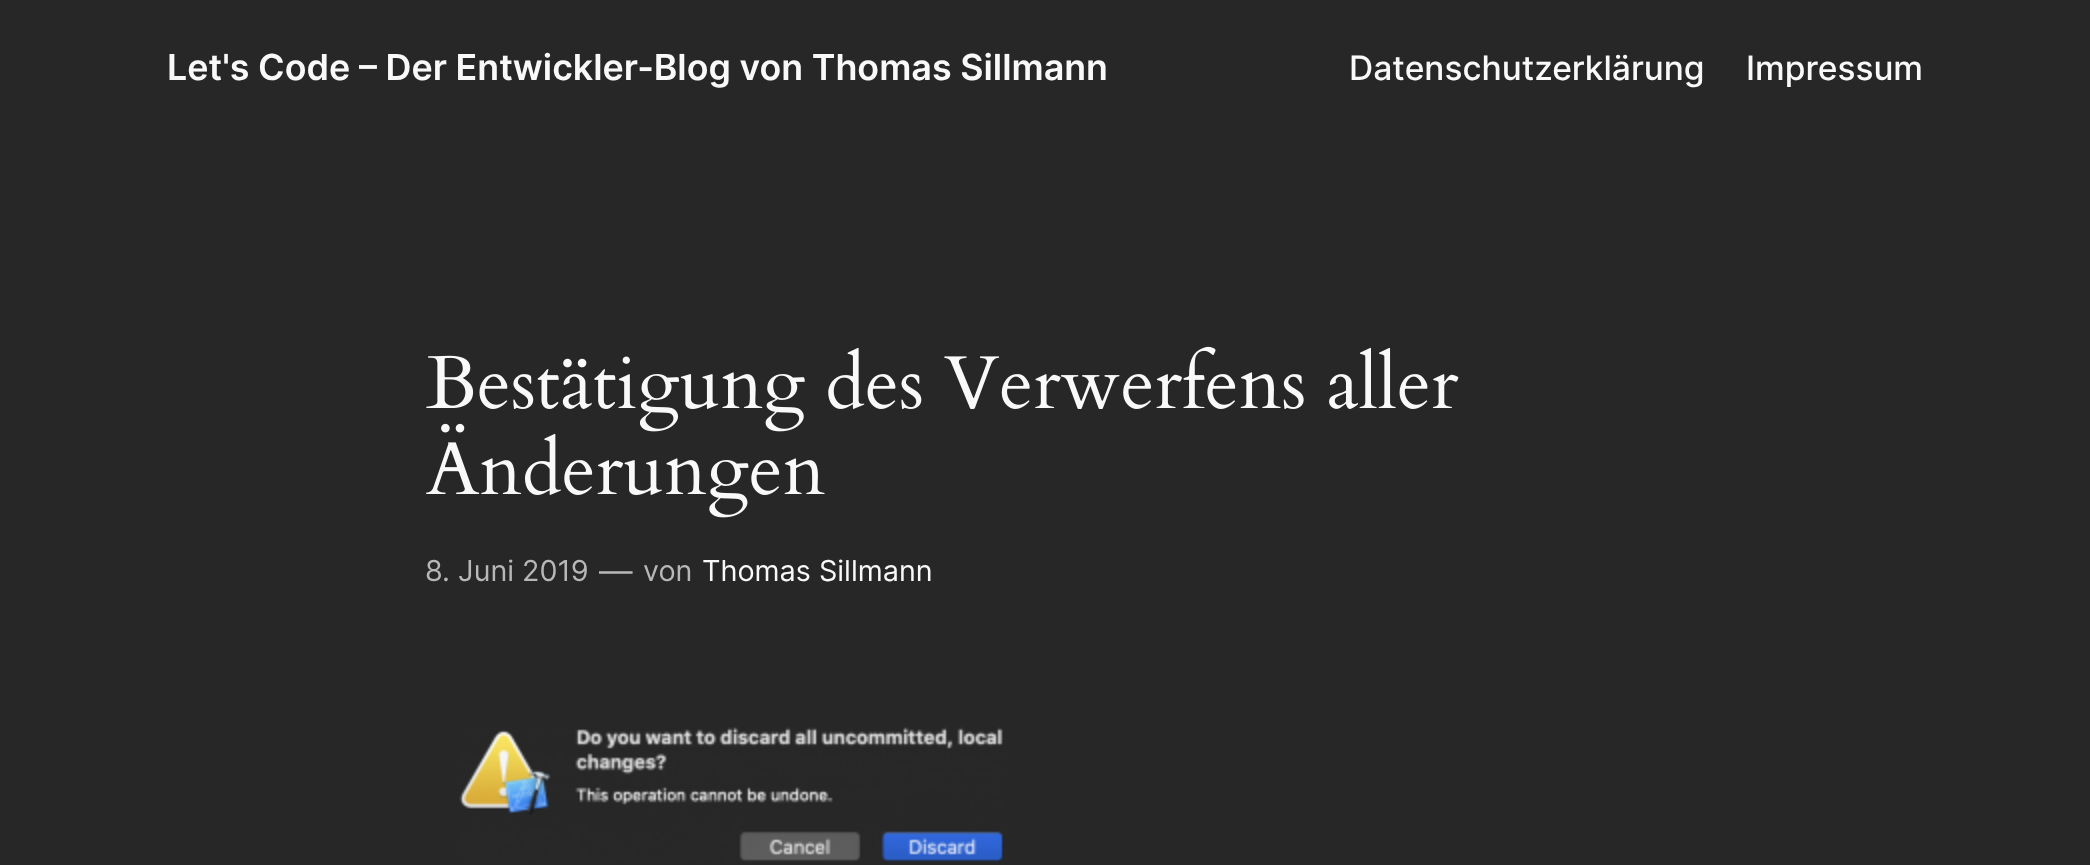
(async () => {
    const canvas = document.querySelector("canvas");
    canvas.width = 2090;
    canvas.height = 865;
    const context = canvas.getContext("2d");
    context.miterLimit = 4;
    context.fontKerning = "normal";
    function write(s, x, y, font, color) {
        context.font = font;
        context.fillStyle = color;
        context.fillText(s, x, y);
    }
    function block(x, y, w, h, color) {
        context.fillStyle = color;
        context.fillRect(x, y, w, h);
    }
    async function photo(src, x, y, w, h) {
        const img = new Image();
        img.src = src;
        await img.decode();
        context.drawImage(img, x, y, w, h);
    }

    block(0, 0, 2090, 865, "rgb(39, 39, 39)");
    context.wordSpacing = "-0.25px";
    write("Let's Code – Der Entwickler-Blog von Thomas Sillmann", 167, 80, "600 35.85px Inter", "rgb(249, 249, 249)");
    context.wordSpacing = "0px";
    write("Datenschutzerklärung", 1349, 80, "500 33.6px Inter", "rgb(249, 249, 249)");
    write("Impressum", 1746, 80, "500 33.6px Inter", "rgb(249, 249, 249)");
    await photo("media/1.png", 426, 346, 1033, 86);
    await photo("media/2.png", 426, 423, 399, 95);
    write("8. Juni 2019", 425, 581, "28.75px Inter", "rgb(183, 183, 183)");
    write("—", 599, 583, "33.6px Inter", "rgb(183, 183, 183)");
    write("von", 643, 581, "28.75px Inter", "rgb(183, 183, 183)");
    write("Thomas Sillmann", 702, 581, "28.75px Inter", "rgb(249, 249, 249)");
    await photo("media/3.png", 459, 727, 544, 136);
})();
